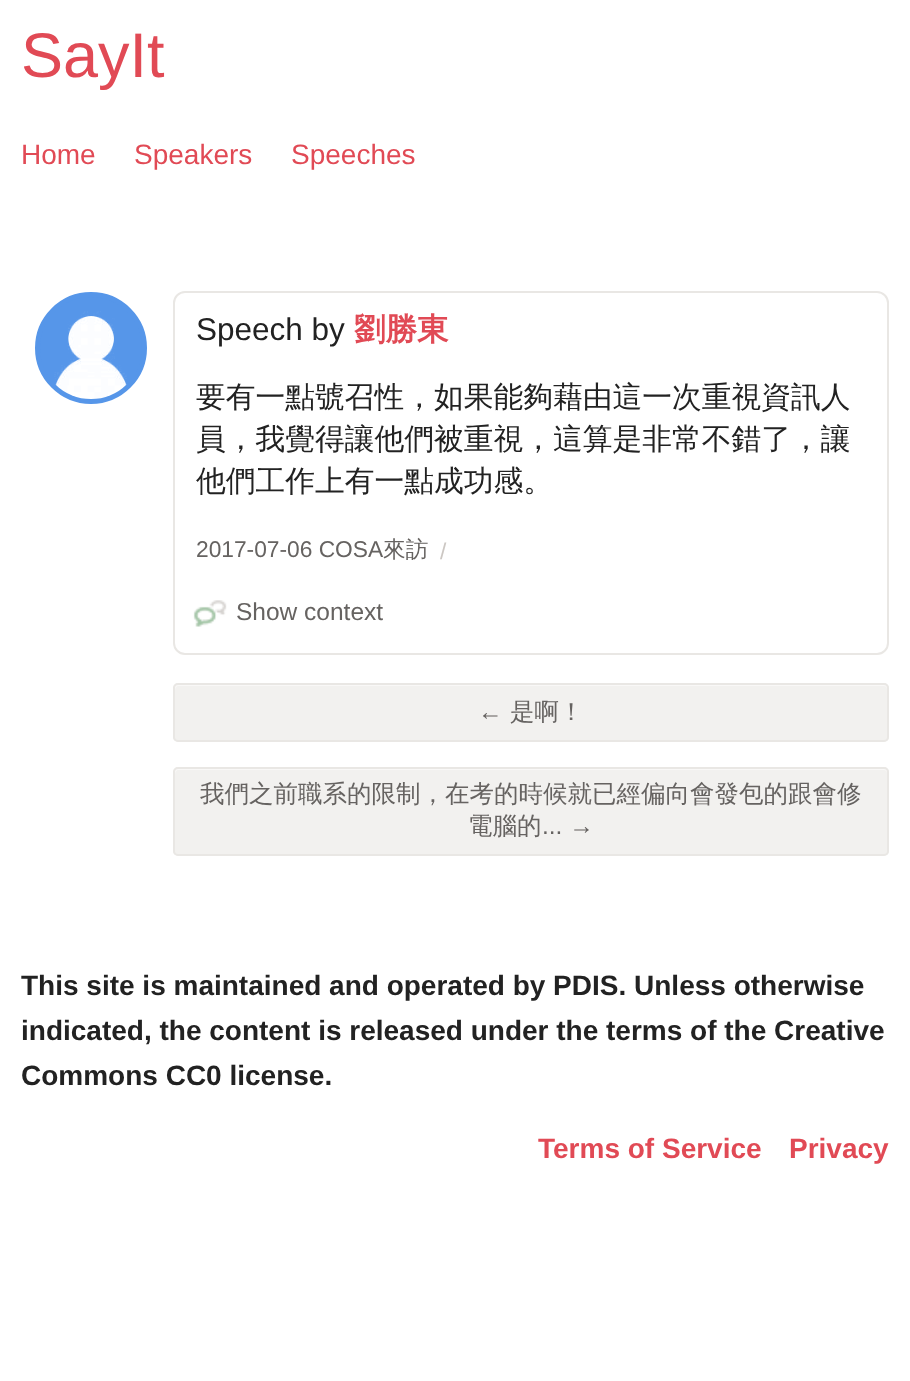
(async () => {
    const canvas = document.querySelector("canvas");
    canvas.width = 910;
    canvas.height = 1381;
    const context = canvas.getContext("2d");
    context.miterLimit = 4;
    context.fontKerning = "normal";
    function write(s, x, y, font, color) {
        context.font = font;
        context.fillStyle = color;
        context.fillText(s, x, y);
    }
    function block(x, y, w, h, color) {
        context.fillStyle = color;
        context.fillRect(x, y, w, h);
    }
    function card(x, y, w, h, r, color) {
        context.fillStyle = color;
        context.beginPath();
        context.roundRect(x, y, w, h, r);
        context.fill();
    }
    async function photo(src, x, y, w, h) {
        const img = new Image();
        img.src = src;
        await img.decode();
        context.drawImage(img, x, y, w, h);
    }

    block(0, 0, 910, 1381, "rgb(255, 255, 255)");
    write("SayIt", 21, 77, "63px Liberation Sans", "rgb(225, 74, 85)");
    write("Home", 21, 164, "28px Liberation Sans", "rgb(225, 74, 85)");
    write("Speakers", 134, 164, "28px Liberation Sans", "rgb(225, 74, 85)");
    write("Speeches", 291, 164, "28px Liberation Sans", "rgb(225, 74, 85)");
    context.beginPath();
    context.roundRect(174, 292, 714, 362, 11);
    context.strokeStyle = "rgb(233, 231, 228)";
    context.lineWidth = 2;
    context.stroke();
    context.fillStyle = "rgb(86, 150, 233)";
    context.beginPath();
    context.arc(91, 348, 53.5, 0, Math.PI * 2);
    context.fill();
    context.strokeStyle = "rgb(86, 150, 233)";
    context.lineWidth = 5;
    context.stroke();
    await photo("media/1.png", 54, 311, 73, 88);
    write("Speech by", 196, 340, "31.5px Liberation Sans", "rgb(34, 34, 34)");
    write("劉勝東", 354, 340, "bold 31.5px WenQuanYi Zen Hei", "rgb(225, 74, 85)");
    write("要有一點號召性，如果能夠藉由這一次重視資訊人", 196, 407, "500 29.75px WenQuanYi Zen Hei", "rgb(34, 34, 34)");
    write("員，我覺得讓他們被重視，這算是非常不錯了，讓", 196, 449, "500 29.75px WenQuanYi Zen Hei", "rgb(34, 34, 34)");
    write("他們工作上有一點成功感。", 196, 491, "500 29.75px WenQuanYi Zen Hei", "rgb(34, 34, 34)");
    write("2017-07-06 COSA", 196, 557, "22.75px Liberation Sans", "rgb(102, 99, 97)");
    write("來訪", 383, 557, "500 22.75px WenQuanYi Zen Hei", "rgb(102, 99, 97)");
    write("/", 440, 559, "22.75px Liberation Sans", "rgb(204, 199, 195)");
    await photo("media/2.png", 193, 600, 34, 27);
    write("Show context", 236, 620, "24.5px Liberation Sans", "rgb(102, 99, 97)");
    card(173, 683, 716, 59, 5, "rgb(242, 241, 239)");
    context.fillStyle = "rgb(249, 248, 247)";
    context.beginPath();
    context.moveTo(178, 686);
    context.lineTo(884, 686);
    context.bezierCurveTo(886, 686, 887, 688, 887, 690);
    context.bezierCurveTo(887, 687, 887, 684, 883, 684);
    context.lineTo(179, 684);
    context.bezierCurveTo(175, 684, 175, 687, 175, 690);
    context.bezierCurveTo(175, 688, 177, 686, 178, 686);
    context.closePath();
    context.fill();
    context.beginPath();
    context.roundRect(174, 684, 714, 57, 4);
    context.strokeStyle = "rgb(233, 231, 228)";
    context.lineWidth = 2;
    context.stroke();
    write("←", 478, 720, "24.5px Liberation Sans", "rgb(102, 99, 97)");
    write("是啊！", 510, 720, "500 24.5px WenQuanYi Zen Hei", "rgb(102, 99, 97)");
    card(173, 767, 716, 89, 5, "rgb(242, 241, 239)");
    context.fillStyle = "rgb(249, 248, 247)";
    context.beginPath();
    context.moveTo(178, 770);
    context.lineTo(884, 770);
    context.bezierCurveTo(886, 770, 887, 772, 887, 774);
    context.bezierCurveTo(887, 771, 887, 768, 883, 768);
    context.lineTo(179, 768);
    context.bezierCurveTo(175, 768, 175, 771, 175, 774);
    context.bezierCurveTo(175, 772, 177, 770, 178, 770);
    context.closePath();
    context.fill();
    context.beginPath();
    context.roundRect(174, 768, 714, 87, 4);
    context.stroke();
    write("我們之前職系的限制，在考的時候就已經偏向會發包的跟會修", 200, 802, "500 24.5px WenQuanYi Zen Hei", "rgb(102, 99, 97)");
    write("電腦的", 468, 834, "500 24.5px WenQuanYi Zen Hei", "rgb(102, 99, 97)");
    write("... →", 542, 834, "24.5px Liberation Sans", "rgb(102, 99, 97)");
    write("This site is maintained and operated by PDIS. Unless otherwise", 21, 995, "bold 28px Liberation Sans", "rgb(34, 34, 34)");
    write("indicated, the content is released under the terms of the Creative", 21, 1040, "bold 28px Liberation Sans", "rgb(34, 34, 34)");
    write("Commons CC0 license.", 21, 1085, "bold 28px Liberation Sans", "rgb(34, 34, 34)");
    write("Terms of Service", 538, 1158, "bold 28px Liberation Sans", "rgb(225, 74, 85)");
    write("Privacy", 789, 1158, "bold 28px Liberation Sans", "rgb(225, 74, 85)");
})();
